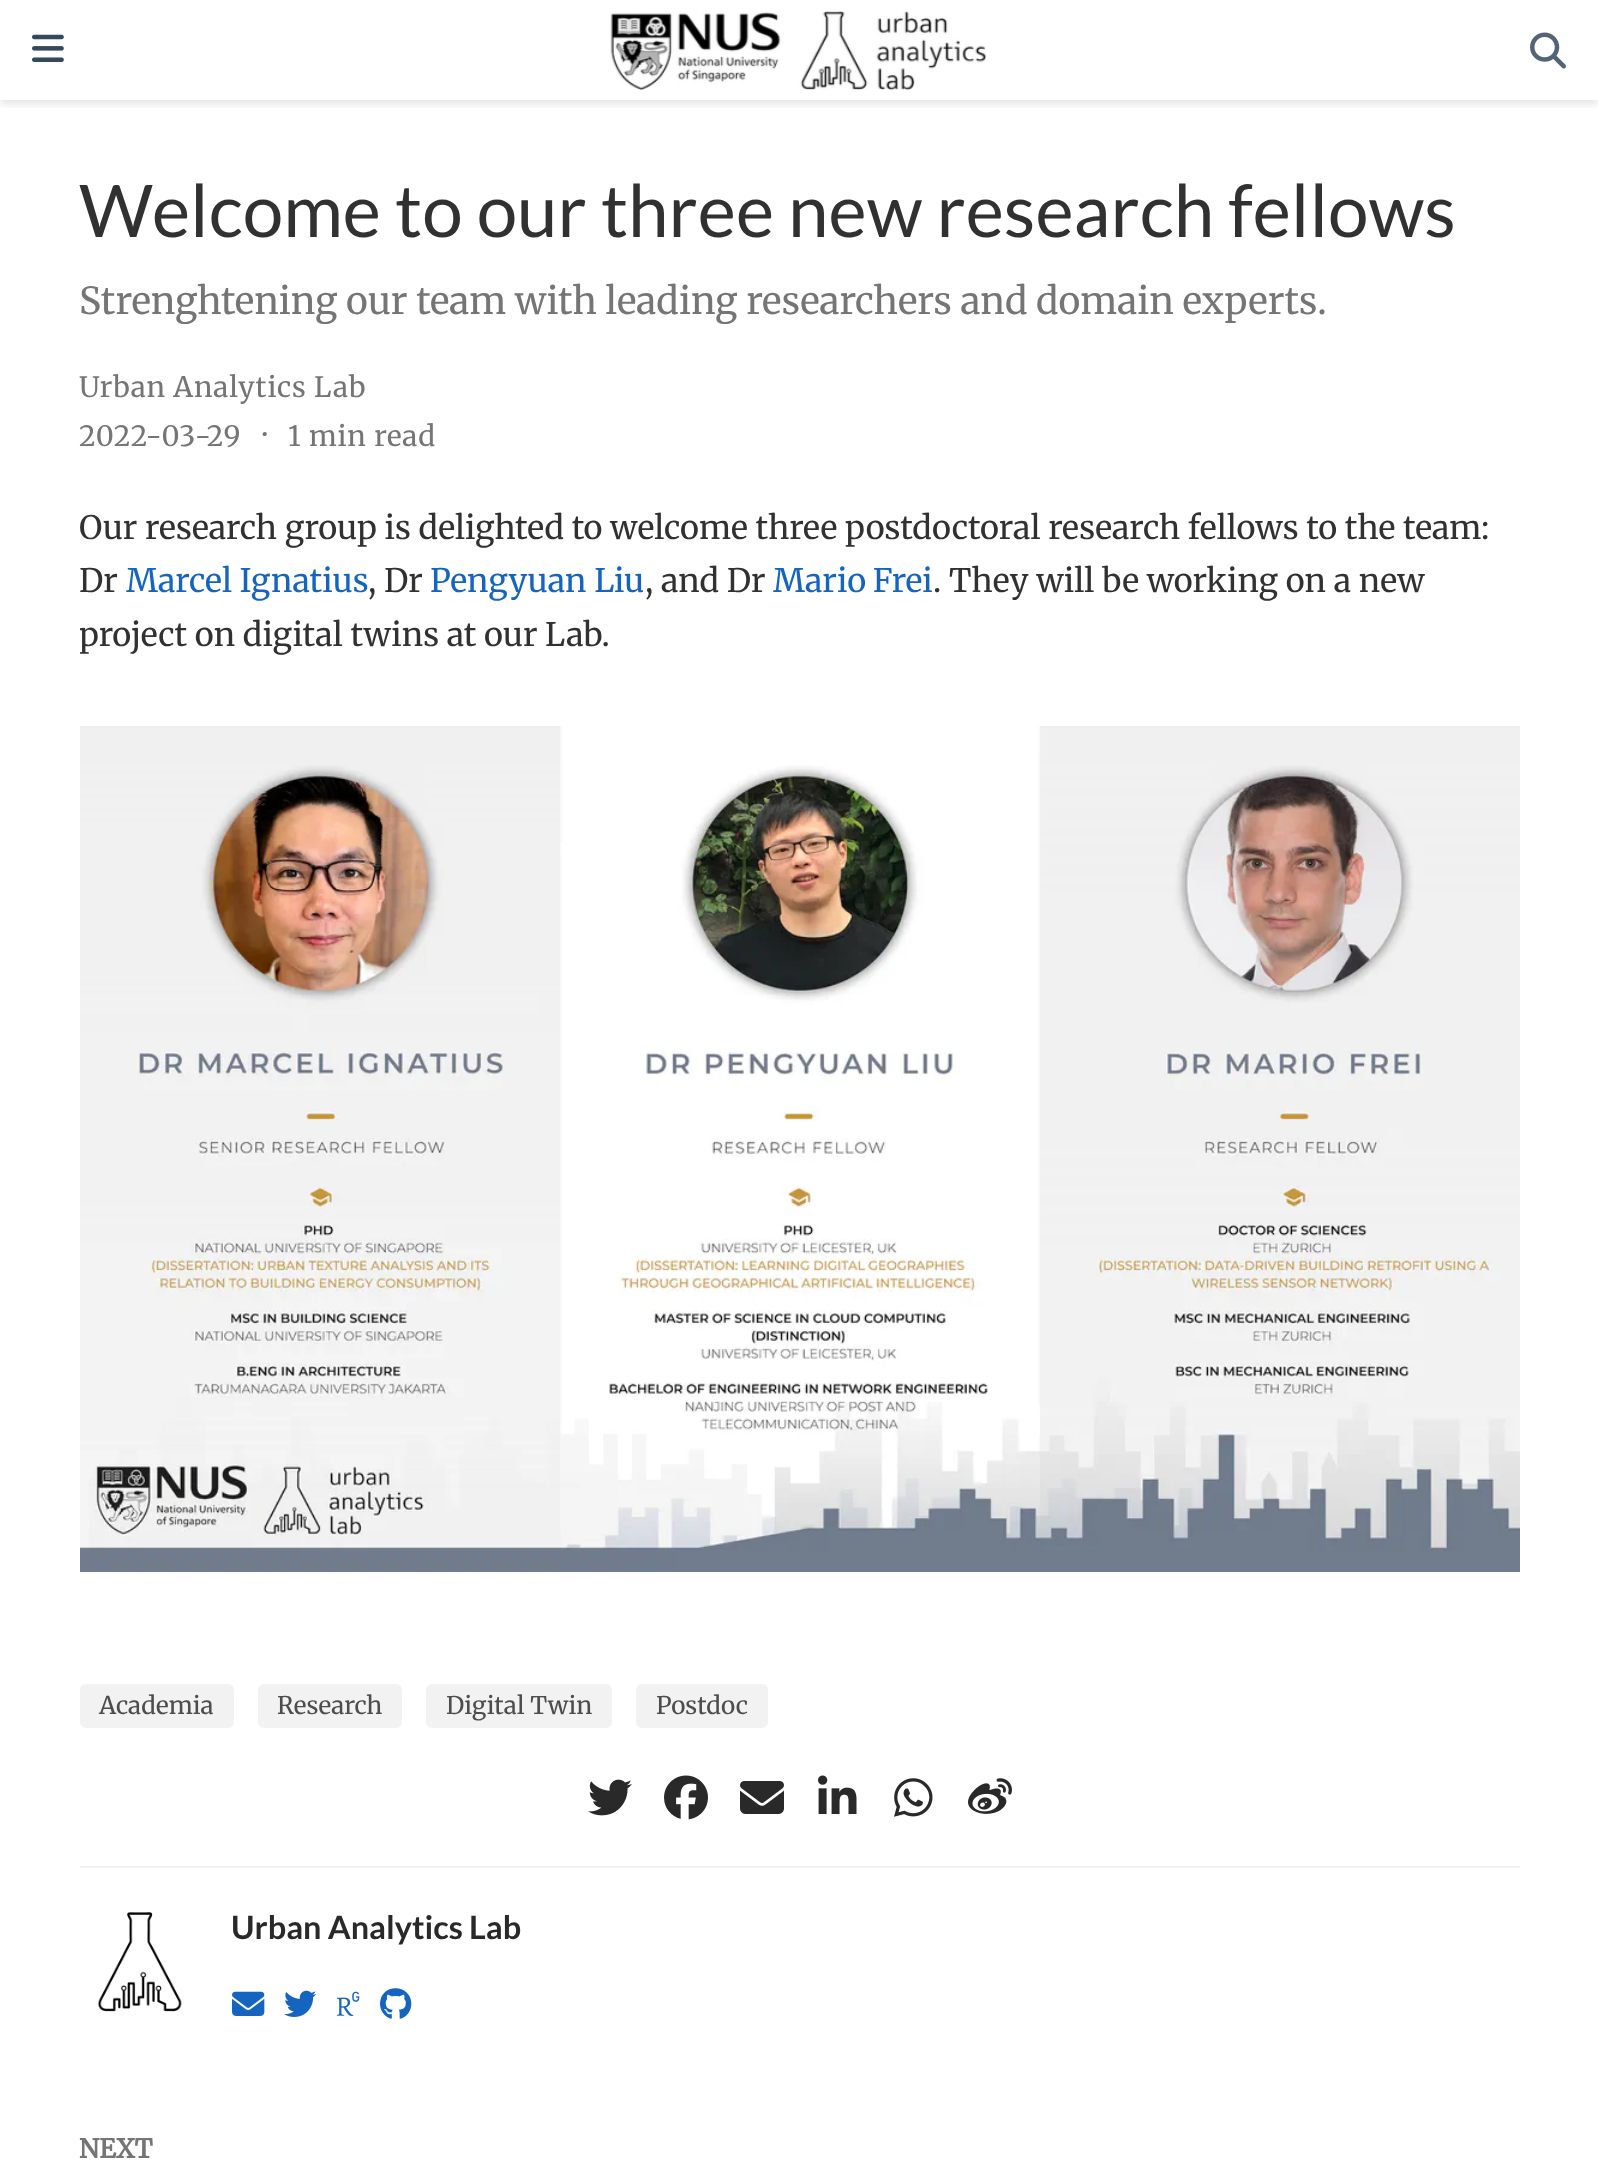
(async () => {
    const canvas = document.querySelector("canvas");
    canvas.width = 1598;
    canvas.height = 2169;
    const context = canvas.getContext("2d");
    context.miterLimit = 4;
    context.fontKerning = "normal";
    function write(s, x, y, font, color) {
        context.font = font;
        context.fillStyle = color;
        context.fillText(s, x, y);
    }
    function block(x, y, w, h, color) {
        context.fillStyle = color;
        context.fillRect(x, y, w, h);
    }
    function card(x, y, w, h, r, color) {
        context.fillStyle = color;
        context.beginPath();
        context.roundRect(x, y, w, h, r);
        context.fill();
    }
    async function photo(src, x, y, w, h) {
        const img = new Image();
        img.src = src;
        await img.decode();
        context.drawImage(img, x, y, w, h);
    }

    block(0, 0, 1598, 2169, "rgb(255, 255, 255)");
    context.save();
    context.beginPath();
    context.rect(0, 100, 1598, 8);
    context.clip();
    context.fillStyle = "rgba(0, 0, 0, 0.11)";
    context.filter = "blur(4px)";
    context.beginPath();
    context.rect(0, 4, 1598, 100);
    context.fill();
    context.filter = "none";
    context.restore();
    await photo("media/1.png", 32, 34, 32, 28);
    await photo("media/2.png", 610, 11, 377, 79);
    await photo("media/3.png", 1530, 32, 36, 37);
    write("Welcome to our three new research fellows", 79, 237, "72.75px Lato", "rgb(49, 49, 49)");
    context.wordSpacing = "-0.25px";
    write("Strenghtening our team with leading researchers and domain experts.", 79, 314, "300 37.2px Merriweather", "rgb(117, 117, 117)");
    context.letterSpacing = "0.8px";
    context.wordSpacing = "0px";
    write("Urban Analytics Lab", 79, 397, "300 28px Merriweather", "rgb(117, 117, 117)");
    write("2022-03-29", 79, 446, "300 28px Merriweather", "rgb(117, 117, 117)");
    write("·", 263, 446, "300 30px Merriweather", "rgb(117, 117, 117)");
    write("1 min read", 288, 446, "300 28px Merriweather", "rgb(117, 117, 117)");
    context.letterSpacing = "0px";
    write("Our research group is delighted to welcome three postdoctoral research fellows to the team:", 79, 539, "300 32.35px Merriweather", "rgb(49, 49, 49)");
    write("Dr", 79, 592, "300 32.35px Merriweather", "rgb(49, 49, 49)");
    write("Marcel Ignatius", 126, 592, "300 32.35px Merriweather", "rgb(21, 101, 192)");
    write(", Dr", 368, 592, "300 32.35px Merriweather", "rgb(49, 49, 49)");
    write("Pengyuan Liu", 430, 592, "300 32.35px Merriweather", "rgb(21, 101, 192)");
    write(", and Dr", 645, 592, "300 32.35px Merriweather", "rgb(49, 49, 49)");
    context.wordSpacing = "-1px";
    write("Mario Frei", 773, 592, "300 32.35px Merriweather", "rgb(21, 101, 192)");
    context.wordSpacing = "0px";
    write(". They will be working on a new", 933, 592, "300 32.35px Merriweather", "rgb(49, 49, 49)");
    context.save();
    context.beginPath();
    context.rect(80, 502, 1440, 1136);
    context.clip();
    write("project on digital twins at our Lab.", 79, 646, "300 32.35px Merriweather", "rgb(49, 49, 49)");
    context.restore();
    await photo("media/4.png", 80, 726, 1440, 846);
    card(80, 1684, 154, 44, 6, "rgb(242, 242, 242)");
    write("Academia", 99, 1714, "300 24.25px Merriweather", "rgb(77, 77, 77)");
    card(258, 1684, 144, 44, 6, "rgb(242, 242, 242)");
    write("Research", 277, 1714, "300 24.25px Merriweather", "rgb(77, 77, 77)");
    card(426, 1684, 186, 44, 6, "rgb(242, 242, 242)");
    write("Digital Twin", 446, 1714, "300 24.25px Merriweather", "rgb(77, 77, 77)");
    card(636, 1684, 132, 44, 6, "rgb(242, 242, 242)");
    write("Postdoc", 656, 1714, "300 24.25px Merriweather", "rgb(77, 77, 77)");
    await photo("media/5.png", 588, 1779, 44, 37);
    await photo("media/6.png", 664, 1775, 44, 45);
    await photo("media/7.png", 740, 1781, 44, 33);
    await photo("media/8.png", 818, 1775, 39, 39);
    await photo("media/9.png", 894, 1778, 39, 39);
    await photo("media/10.png", 968, 1778, 44, 36);
    block(80, 1866, 1440, 2, "rgb(242, 242, 242)");
    await photo("media/11.png", 97, 1912, 85, 100);
    write("Urban Analytics Lab", 231, 1939, "bold 32.35px Lato", "rgb(41, 41, 41)");
    await photo("media/12.png", 232, 1991, 33, 25);
    await photo("media/13.png", 284, 1990, 33, 27);
    await photo("media/14.png", 336, 1991, 24, 25);
    await photo("media/15.png", 380, 1988, 32, 31);
    write("NEXT", 79, 2158, "bold 26px Merriweather", "rgb(117, 117, 117)");
})();
